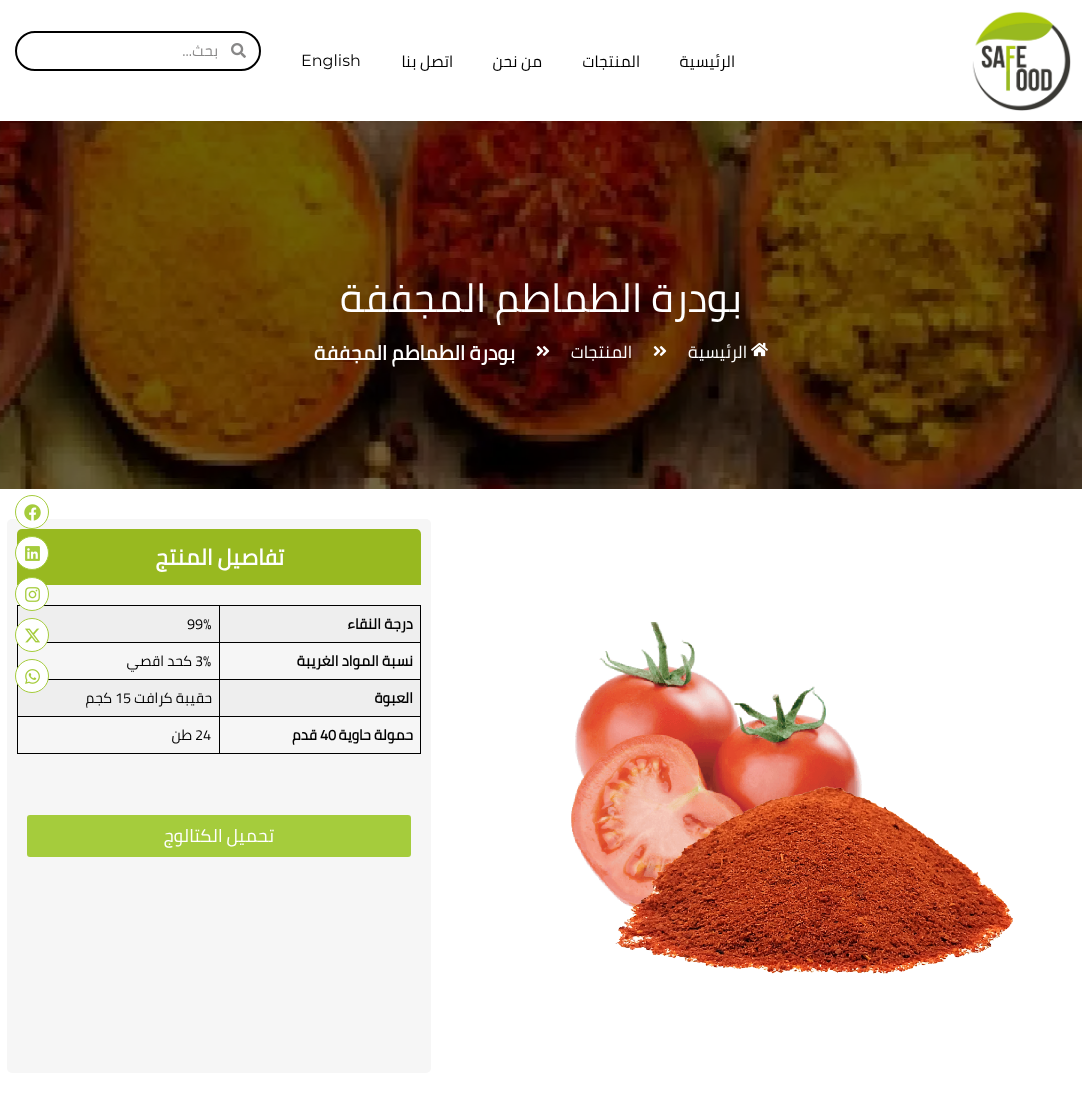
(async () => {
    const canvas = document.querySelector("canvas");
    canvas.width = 1082;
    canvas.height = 1100;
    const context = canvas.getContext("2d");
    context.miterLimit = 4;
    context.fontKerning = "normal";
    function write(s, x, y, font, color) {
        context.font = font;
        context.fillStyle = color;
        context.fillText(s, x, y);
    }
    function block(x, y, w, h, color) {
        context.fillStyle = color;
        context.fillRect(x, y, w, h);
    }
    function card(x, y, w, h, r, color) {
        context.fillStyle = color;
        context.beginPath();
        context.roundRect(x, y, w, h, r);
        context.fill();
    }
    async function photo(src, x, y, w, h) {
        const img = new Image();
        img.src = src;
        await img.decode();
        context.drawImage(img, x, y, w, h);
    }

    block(0, 0, 1082, 1100, "rgb(255, 255, 255)");
    await photo("media/1.png", 972, 11, 99, 100);
    context.beginPath();
    context.roundRect(16, 32, 244, 38, 19);
    context.strokeStyle = "rgb(0, 0, 0)";
    context.lineWidth = 2;
    context.stroke();
    await photo("media/2.png", 231, 43, 15, 15);
    context.direction = "rtl";
    write("بحث...", 218, 56, "15px Cairo", "rgb(136, 135, 135)");
    card(7, 519, 424, 554, 5, "rgb(246, 246, 246)");
    context.fillStyle = "rgb(255, 255, 255)";
    context.beginPath();
    context.arc(32, 512, 16.5, 0, Math.PI * 2);
    context.fill();
    context.strokeStyle = "rgb(165, 204, 60)";
    context.lineWidth = 1;
    context.stroke();
    await photo("media/3.png", 24, 504, 17, 17);
    context.fillStyle = "rgb(152, 185, 32)";
    context.beginPath();
    context.roundRect(17, 529, 404, 56, [5, 5, 0, 0]);
    context.fill();
    context.fillStyle = "rgb(255, 255, 255)";
    context.beginPath();
    context.arc(32, 553, 16.5, 0, Math.PI * 2);
    context.fill();
    context.stroke();
    await photo("media/4.png", 25, 546, 15, 15);
    block(18, 606, 201, 36, "rgb(238, 238, 238)");
    block(17, 605, 203, 1, "rgb(0, 0, 0)");
    block(17, 605, 1, 22, "rgb(0, 0, 0)");
    context.fillStyle = "rgb(255, 255, 255)";
    context.beginPath();
    context.arc(32, 594, 16.5, 0, Math.PI * 2);
    context.fill();
    context.stroke();
    await photo("media/5.png", 25, 587, 15, 15);
    block(47, 642, 173, 1, "rgb(0, 0, 0)");
    block(17, 642, 1, 26, "rgb(0, 0, 0)");
    context.fillStyle = "rgb(255, 255, 255)";
    context.beginPath();
    context.arc(32, 635, 16.5, 0, Math.PI * 2);
    context.fill();
    context.stroke();
    await photo("media/6.png", 25, 628, 15, 15);
    block(18, 680, 201, 36, "rgb(238, 238, 238)");
    block(48, 679, 172, 1, "rgb(0, 0, 0)");
    block(17, 716, 203, 1, "rgb(0, 0, 0)");
    block(219, 716, 1, 38, "rgb(0, 0, 0)");
    block(17, 753, 203, 1, "rgb(0, 0, 0)");
    block(17, 679, 1, 75, "rgb(0, 0, 0)");
    context.fillStyle = "rgb(255, 255, 255)";
    context.beginPath();
    context.arc(32, 676, 16.5, 0, Math.PI * 2);
    context.fill();
    context.stroke();
    await photo("media/7.png", 25, 669, 15, 15);
    write("الرئيسية", 735, 67, "16px Cairo", "rgb(0, 0, 0)");
    write("المنتجات", 640, 67, "16px Cairo", "rgb(0, 0, 0)");
    write("من نحن", 542, 67, "16px Cairo", "rgb(0, 0, 0)");
    write("اتصل بنا", 453, 67, "16px Cairo", "rgb(0, 0, 0)");
    context.direction = "ltr";
    write("English", 301, 66, "16px Montserrat", "rgb(0, 0, 0)");
    await photo("media/8.png", 0, 121, 1082, 368);
    context.direction = "rtl";
    write("بودرة الطماطم المجففة", 742, 312, "40px Cairo", "rgb(255, 255, 255)");
    await photo("media/9.png", 751, 342, 17, 15);
    write("الرئيسية", 747, 358, "17px Cairo", "rgb(255, 255, 255)");
    await photo("media/10.png", 653, 346, 14, 10);
    write("المنتجات", 632, 358, "17px Cairo", "rgb(255, 255, 255)");
    await photo("media/11.png", 536, 346, 14, 10);
    write("بودرة الطماطم المجففة", 515, 360, "bold 20px Cairo", "rgb(255, 255, 255)");
    await photo("media/12.png", 571, 622, 442, 352);
    write("تفاصيل المنتج", 284, 565, "bold 22px Cairo", "rgb(255, 255, 255)");
    block(220, 606, 200, 36, "rgb(238, 238, 238)");
    block(219, 716, 202, 1, "rgb(0, 0, 0)");
    block(219, 679, 1, 38, "rgb(0, 0, 0)");
    block(219, 679, 202, 1, "rgb(0, 0, 0)");
    block(219, 642, 1, 38, "rgb(0, 0, 0)");
    block(219, 642, 202, 1, "rgb(0, 0, 0)");
    block(219, 605, 1, 38, "rgb(0, 0, 0)");
    block(219, 605, 202, 1, "rgb(0, 0, 0)");
    block(420, 716, 1, 38, "rgb(0, 0, 0)");
    block(420, 679, 1, 38, "rgb(0, 0, 0)");
    block(420, 642, 1, 38, "rgb(0, 0, 0)");
    block(420, 605, 1, 38, "rgb(0, 0, 0)");
    write("درجة النقاء", 413, 629, "bold 14.5px Cairo", "rgb(0, 0, 0)");
    context.direction = "ltr";
    write("99%", 187, 629, "14.5px Cairo", "rgb(0, 0, 0)");
    context.direction = "rtl";
    write("نسبة المواد الغريبة", 413, 666, "bold 14.5px Cairo", "rgb(0, 0, 0)");
    context.direction = "ltr";
    write("3%", 195, 666, "14.5px Cairo", "rgb(0, 0, 0)");
    context.direction = "rtl";
    write("كحد اقصي", 192, 666, "14.5px Cairo", "rgb(0, 0, 0)");
    block(220, 680, 200, 36, "rgb(238, 238, 238)");
    write("العبوة", 413, 703, "bold 14.5px Cairo", "rgb(0, 0, 0)");
    write("حقيبة كرافت", 212, 703, "14.5px Cairo", "rgb(0, 0, 0)");
    context.direction = "ltr";
    write("15", 115, 703, "14.5px Cairo", "rgb(0, 0, 0)");
    context.direction = "rtl";
    write("كجم", 112, 703, "14.5px Cairo", "rgb(0, 0, 0)");
    block(219, 753, 202, 1, "rgb(0, 0, 0)");
    write("حمولة حاوية", 413, 740, "bold 14.5px Cairo", "rgb(0, 0, 0)");
    context.direction = "ltr";
    write("40", 320, 740, "bold 14.5px Cairo", "rgb(0, 0, 0)");
    context.direction = "rtl";
    write("قدم", 317, 740, "bold 14.5px Cairo", "rgb(0, 0, 0)");
    context.direction = "ltr";
    write("24", 195, 740, "14.5px Cairo", "rgb(0, 0, 0)");
    context.direction = "rtl";
    write("طن", 192, 740, "14.5px Cairo", "rgb(0, 0, 0)");
    card(27, 815, 384, 42, 3, "rgb(165, 204, 60)");
    write("تحميل الكتالوج", 274, 842, "18px Cairo", "rgb(255, 255, 255)");
})();
